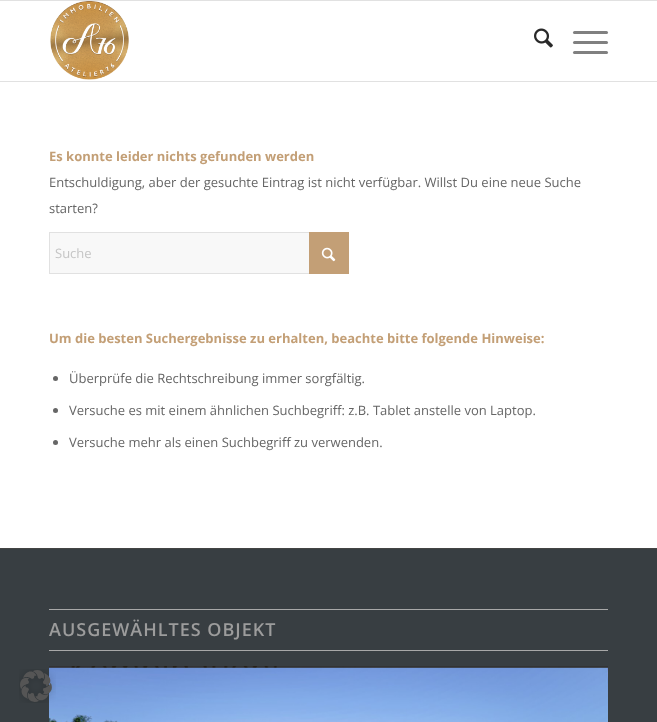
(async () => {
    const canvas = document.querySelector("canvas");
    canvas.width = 657;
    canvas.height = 722;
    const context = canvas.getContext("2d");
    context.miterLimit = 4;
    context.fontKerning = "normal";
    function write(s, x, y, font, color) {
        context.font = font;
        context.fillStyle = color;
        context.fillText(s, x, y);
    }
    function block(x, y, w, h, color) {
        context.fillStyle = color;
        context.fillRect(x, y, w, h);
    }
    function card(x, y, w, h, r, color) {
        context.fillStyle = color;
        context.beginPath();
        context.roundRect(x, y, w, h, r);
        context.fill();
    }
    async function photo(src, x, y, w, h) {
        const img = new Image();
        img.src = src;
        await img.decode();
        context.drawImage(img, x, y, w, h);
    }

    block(0, 0, 657, 722, "rgb(255, 255, 255)");
    block(0, 0, 657, 1, "rgb(225, 225, 225)");
    block(0, 81, 657, 1, "rgb(225, 225, 225)");
    await photo("media/1.png", 50, 1, 79, 79);
    await photo("media/2.png", 534, 28, 19, 20);
    card(573, 41, 35, 3, 1.5, "rgb(128, 128, 128)");
    card(573, 31, 35, 3, 1.5, "rgb(128, 128, 128)");
    card(573, 51, 35, 3, 1.5, "rgb(128, 128, 128)");
    write("Es konnte leider nichts gefunden werden", 49, 161, "bold 13px Open Sans", "rgb(195, 159, 118)");
    write("Entschuldigung, aber der gesuchte Eintrag ist nicht verfügbar. Willst Du eine neue Suche", 49, 187, "13px Open Sans", "rgb(102, 102, 102)");
    write("starten?", 49, 213, "13px Open Sans", "rgb(102, 102, 102)");
    block(50, 233, 259, 40, "rgb(248, 248, 248)");
    context.strokeStyle = "rgb(225, 225, 225)";
    context.strokeRect(49.5, 232.5, 299, 41);
    block(309, 232, 40, 42, "rgb(195, 159, 118)");
    write("Suche", 55, 258, "13px Open Sans", "rgb(197, 197, 197)");
    await photo("media/3.png", 321, 247, 15, 15);
    write("Um die besten Suchergebnisse zu erhalten, beachte bitte folgende Hinweise:", 49, 343, "bold 13px Open Sans", "rgb(195, 159, 118)");
    context.fillStyle = "rgb(102, 102, 102)";
    context.beginPath();
    context.arc(55.5, 378.5, 2.5, 0, Math.PI * 2);
    context.fill();
    write("Überprüfe die Rechtschreibung immer sorgfältig.", 69, 383, "13px Open Sans", "rgb(102, 102, 102)");
    context.beginPath();
    context.arc(55.5, 410.5, 2.5, 0, Math.PI * 2);
    context.fill();
    write("Versuche es mit einem ähnlichen Suchbegriff: z.B. Tablet anstelle von Laptop.", 69, 415, "13px Open Sans", "rgb(102, 102, 102)");
    context.beginPath();
    context.arc(55.5, 442.5, 2.5, 0, Math.PI * 2);
    context.fill();
    write("Versuche mehr als einen Suchbegriff zu verwenden.", 69, 447, "13px Open Sans", "rgb(102, 102, 102)");
    block(0, 549, 657, 173, "rgb(56, 62, 66)");
    block(0, 548, 657, 1, "rgb(68, 68, 68)");
    block(49, 609, 559, 1, "rgb(168, 168, 168)");
    block(49, 650, 559, 1, "rgb(168, 168, 168)");
    context.letterSpacing = "1px";
    write("AUSGEWÄHLTES OBJEKT", 49, 636, "600 18px Open Sans", "rgb(156, 156, 156)");
    await photo("media/4.png", 49, 666, 559, 56);
    await photo("media/5.png", 19, 669, 37, 34);
})();
